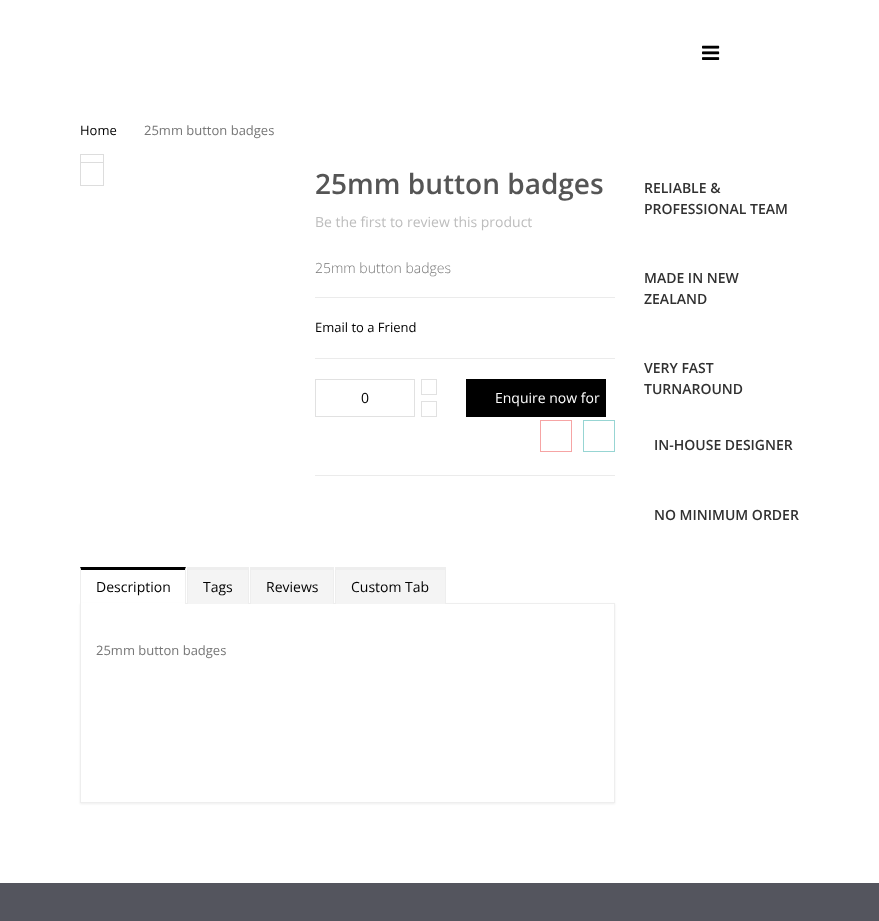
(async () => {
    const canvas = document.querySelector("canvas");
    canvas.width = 879;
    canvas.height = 921;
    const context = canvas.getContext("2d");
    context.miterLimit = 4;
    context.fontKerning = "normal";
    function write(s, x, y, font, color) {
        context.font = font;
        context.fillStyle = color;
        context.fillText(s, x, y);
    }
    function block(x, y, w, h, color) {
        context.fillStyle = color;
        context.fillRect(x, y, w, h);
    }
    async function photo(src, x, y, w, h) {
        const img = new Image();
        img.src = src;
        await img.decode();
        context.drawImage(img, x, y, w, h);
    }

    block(0, 0, 879, 921, "rgb(255, 255, 255)");
    await photo("media/1.png", 702, 45, 18, 15);
    write("Home", 80, 135, "13px Open Sans", "rgb(0, 0, 0)");
    write("25mm button badges", 144, 135, "13px Open Sans", "rgb(119, 119, 119)");
    context.strokeStyle = "rgb(221, 221, 221)";
    context.strokeRect(80.5, 154.5, 23, 23);
    block(81, 177, 22, 1, "rgb(255, 255, 255)");
    context.strokeRect(80.5, 162.5, 23, 23);
    write("25mm button badges", 315, 194, "600 28px Open Sans", "rgb(85, 85, 85)");
    write("Be the first to review this product", 315, 227, "14px Open Sans", "rgb(189, 189, 189)");
    block(315, 297, 300, 1, "rgb(235, 235, 235)");
    write("25mm button badges", 315, 273, "300 14px Open Sans", "rgb(119, 119, 119)");
    block(315, 358, 300, 1, "rgb(235, 235, 235)");
    write("Email to a Friend", 315, 332, "13px Open Sans", "rgb(0, 0, 0)");
    block(315, 475, 300, 1, "rgb(235, 235, 235)");
    context.strokeStyle = "rgb(225, 225, 225)";
    context.strokeRect(315.5, 379.5, 99, 37);
    write("0", 361, 403, "14px Open Sans", "rgb(0, 0, 0)");
    context.strokeRect(421.5, 379.5, 15, 15);
    context.strokeRect(421.5, 401.5, 15, 15);
    block(466, 379, 140, 38, "rgb(0, 0, 0)");
    write("Enquire now for", 495, 403, "14px Open Sans", "rgb(255, 255, 255)");
    context.strokeStyle = "rgb(246, 164, 164)";
    context.strokeRect(540.5, 420.5, 31, 31);
    context.strokeStyle = "rgb(151, 213, 211)";
    context.strokeRect(583.5, 420.5, 31, 31);
    context.save();
    context.beginPath();
    context.moveTo(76, 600);
    context.lineTo(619, 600);
    context.lineTo(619, 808);
    context.lineTo(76, 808);
    context.closePath();
    context.moveTo(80, 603);
    context.lineTo(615, 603);
    context.lineTo(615, 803);
    context.lineTo(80, 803);
    context.closePath();
    context.clip("evenodd");
    context.fillStyle = "rgb(238, 238, 238)";
    context.filter = "blur(1px)";
    context.beginPath();
    context.rect(80, 604, 535, 200);
    context.fill();
    context.filter = "none";
    context.restore();
    context.strokeStyle = "rgb(238, 238, 238)";
    context.strokeRect(80.5, 603.5, 534, 199);
    block(81, 603, 104, 1, "rgb(255, 255, 255)");
    context.fillStyle = "rgb(0, 0, 0)";
    context.beginPath();
    context.moveTo(80, 567);
    context.lineTo(186, 567);
    context.lineTo(185, 570);
    context.lineTo(81, 570);
    context.closePath();
    context.fill();
    context.fillStyle = "rgb(238, 238, 238)";
    context.beginPath();
    context.moveTo(186, 567);
    context.lineTo(186, 604);
    context.lineTo(185, 604);
    context.lineTo(185, 570);
    context.closePath();
    context.fill();
    context.beginPath();
    context.moveTo(80, 604);
    context.lineTo(80, 567);
    context.lineTo(81, 570);
    context.lineTo(81, 604);
    context.closePath();
    context.fill();
    write("Description", 96, 592, "14px Open Sans", "rgb(0, 0, 0)");
    block(188, 570, 60, 34, "rgb(244, 244, 244)");
    block(187, 567, 62, 3, "rgb(238, 238, 238)");
    block(248, 567, 1, 37, "rgb(238, 238, 238)");
    block(187, 567, 1, 37, "rgb(238, 238, 238)");
    write("Tags", 203, 592, "14px Open Sans", "rgb(0, 0, 0)");
    block(251, 570, 82, 34, "rgb(244, 244, 244)");
    block(250, 567, 84, 3, "rgb(238, 238, 238)");
    block(333, 567, 1, 37, "rgb(238, 238, 238)");
    block(250, 567, 1, 37, "rgb(238, 238, 238)");
    write("Reviews", 266, 592, "14px Open Sans", "rgb(0, 0, 0)");
    block(336, 570, 109, 34, "rgb(244, 244, 244)");
    block(335, 567, 111, 3, "rgb(238, 238, 238)");
    block(445, 567, 1, 37, "rgb(238, 238, 238)");
    block(335, 567, 1, 37, "rgb(238, 238, 238)");
    write("Custom Tab", 351, 592, "14px Open Sans", "rgb(0, 0, 0)");
    write("25mm button badges", 96, 655, "13px Open Sans", "rgb(119, 119, 119)");
    write("RELIABLE &", 644, 193, "600 14px Open Sans", "rgb(49, 49, 49)");
    write("PROFESSIONAL TEAM", 644, 214, "600 14px Open Sans", "rgb(49, 49, 49)");
    write("MADE IN NEW", 644, 283, "600 14px Open Sans", "rgb(49, 49, 49)");
    write("ZEALAND", 644, 304, "600 14px Open Sans", "rgb(49, 49, 49)");
    write("VERY FAST", 644, 373, "600 14px Open Sans", "rgb(49, 49, 49)");
    write("TURNAROUND", 644, 394, "600 14px Open Sans", "rgb(49, 49, 49)");
    write("IN-HOUSE DESIGNER", 654, 450, "600 14px Open Sans", "rgb(49, 49, 49)");
    write("NO MINIMUM ORDER", 654, 520, "600 14px Open Sans", "rgb(49, 49, 49)");
    block(0, 883, 879, 38, "rgb(84, 85, 94)");
})();
